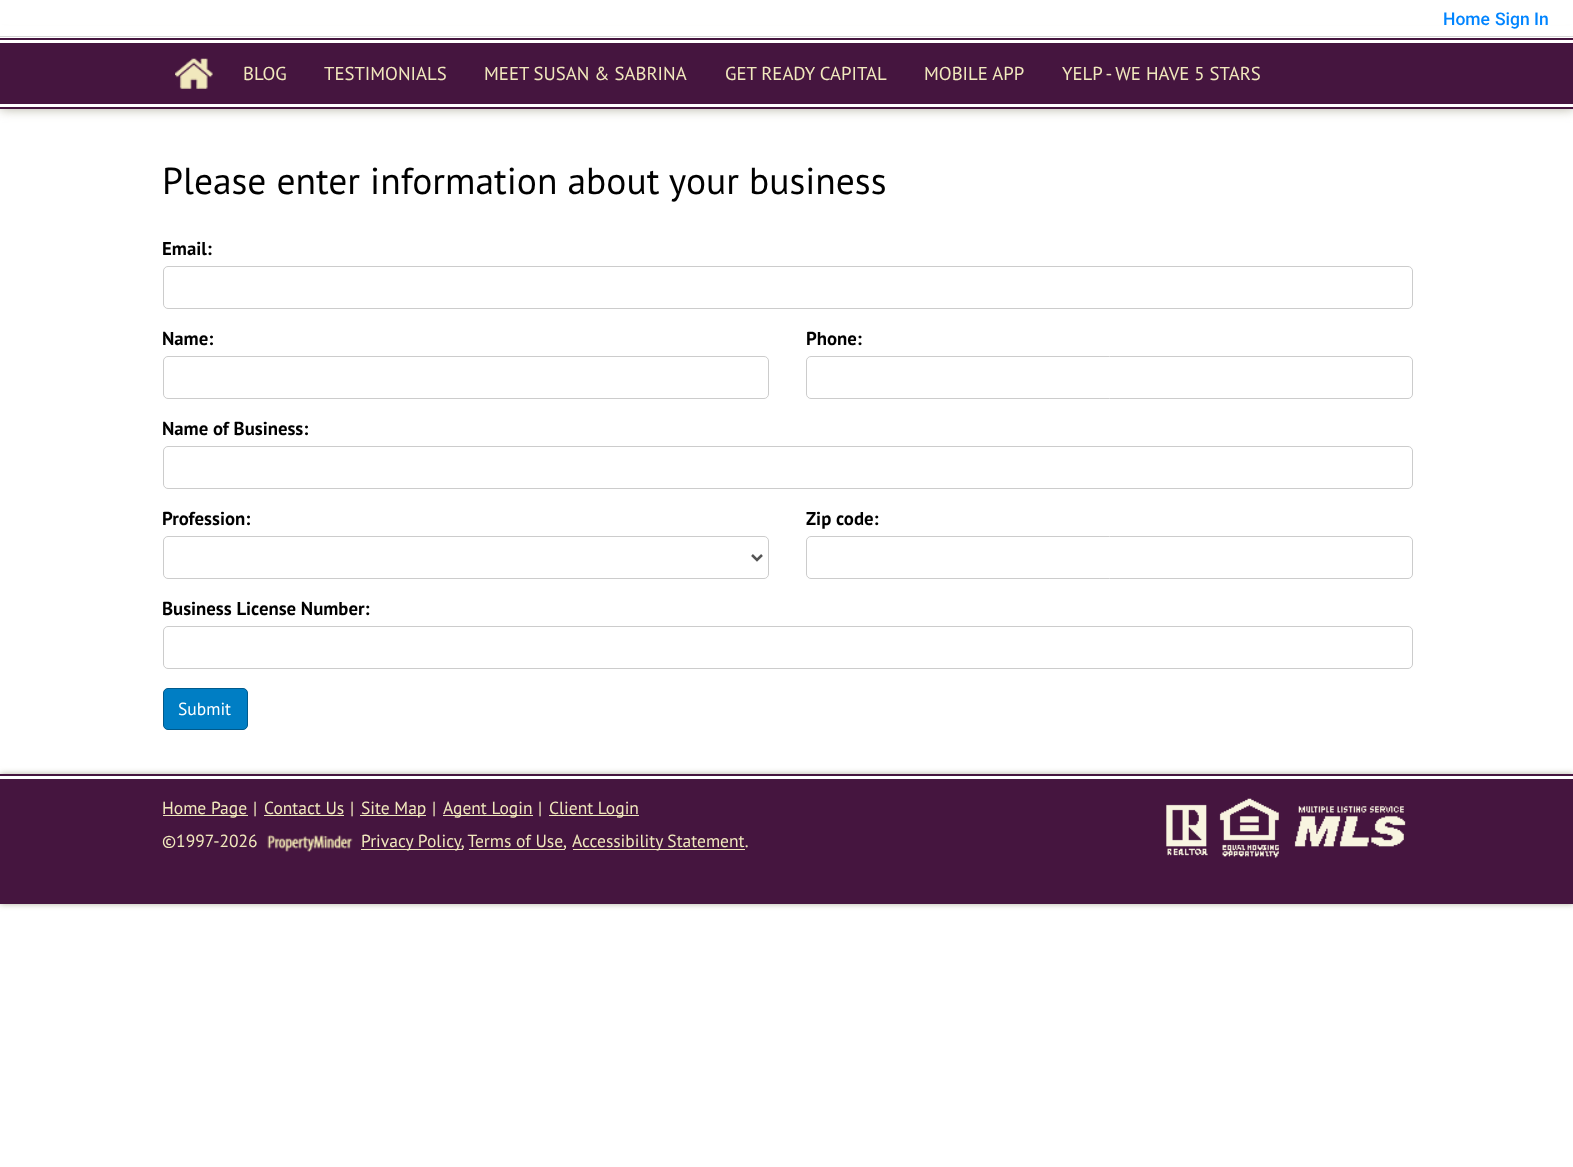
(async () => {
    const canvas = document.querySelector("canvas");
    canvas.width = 1573;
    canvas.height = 1167;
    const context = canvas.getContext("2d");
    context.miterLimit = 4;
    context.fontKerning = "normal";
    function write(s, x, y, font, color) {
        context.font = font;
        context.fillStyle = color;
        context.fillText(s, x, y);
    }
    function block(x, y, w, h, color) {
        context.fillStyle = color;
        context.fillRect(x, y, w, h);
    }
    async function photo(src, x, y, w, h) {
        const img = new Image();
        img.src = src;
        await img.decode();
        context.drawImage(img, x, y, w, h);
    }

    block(0, 0, 1573, 1167, "rgb(255, 255, 255)");
    context.fillStyle = "rgb(178, 176, 160)";
    context.filter = "blur(6px)";
    context.beginPath();
    context.rect(0, 38, 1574, 71);
    context.fill();
    context.filter = "none";
    block(0, 26, 1573, 12, "rgb(255, 255, 255)");
    block(0, 36, 1573, 1, "rgb(214, 214, 214)");
    write("Home", 1443, 25, "500 17.5px Roboto", "rgb(0, 132, 255)");
    write("Sign In", 1495, 25, "500 17.5px Roboto", "rgb(0, 132, 255)");
    block(0, 38, 1573, 71, "rgb(69, 21, 63)");
    block(0, 40, 1573, 3, "rgb(255, 255, 255)");
    block(0, 104, 1573, 3, "rgb(255, 255, 255)");
    await photo("media/1.png", 175, 58, 38, 31);
    write("BLOG", 243, 80, "18.75px PT Sans", "rgb(241, 232, 189)");
    write("TESTIMONIALS", 324, 80, "18.75px PT Sans", "rgb(241, 232, 189)");
    write("MEET SUSAN & SABRINA", 484, 80, "18.75px PT Sans", "rgb(241, 232, 189)");
    write("GET READY CAPITAL", 725, 80, "18.75px PT Sans", "rgb(241, 232, 189)");
    write("MOBILE APP", 924, 80, "18.75px PT Sans", "rgb(241, 232, 189)");
    write("YELP - WE HAVE 5 STARS", 1062, 80, "18.75px PT Sans", "rgb(241, 232, 189)");
    write("Please enter information about your business", 162, 194, "37.5px PT Sans", "rgb(0, 0, 0)");
    write("Email:", 162, 255, "bold 18.75px PT Sans", "rgb(0, 0, 0)");
    context.beginPath();
    context.roundRect(163.5, 266.5, 1249, 42, 4.5);
    context.strokeStyle = "rgb(204, 204, 204)";
    context.stroke();
    write("Name:", 162, 345, "bold 18.75px PT Sans", "rgb(0, 0, 0)");
    context.beginPath();
    context.roundRect(163.5, 356.5, 605, 42, 4.5);
    context.stroke();
    write("Phone:", 806, 345, "bold 18.75px PT Sans", "rgb(0, 0, 0)");
    context.beginPath();
    context.roundRect(806.5, 356.5, 606, 42, 4.5);
    context.stroke();
    write("Name of Business:", 162, 435, "bold 18.75px PT Sans", "rgb(0, 0, 0)");
    context.beginPath();
    context.roundRect(163.5, 446.5, 1249, 42, 4.5);
    context.stroke();
    write("Profession:", 162, 525, "bold 18.75px PT Sans", "rgb(0, 0, 0)");
    context.beginPath();
    context.roundRect(163.5, 536.5, 605, 42, 4.5);
    context.stroke();
    context.beginPath();
    context.moveTo(752, 555);
    context.lineTo(757, 560);
    context.lineTo(762, 555);
    context.strokeStyle = "rgb(85, 85, 85)";
    context.lineWidth = 2.5;
    context.stroke();
    write("Zip code:", 806, 525, "bold 18.75px PT Sans", "rgb(0, 0, 0)");
    context.beginPath();
    context.roundRect(806.5, 536.5, 606, 42, 4.5);
    context.strokeStyle = "rgb(204, 204, 204)";
    context.lineWidth = 1;
    context.stroke();
    write("Business License Number:", 162, 615, "bold 18.75px PT Sans", "rgb(0, 0, 0)");
    context.beginPath();
    context.roundRect(163.5, 626.5, 1249, 42, 4.5);
    context.stroke();
    context.fillStyle = "rgb(0, 126, 196)";
    context.beginPath();
    context.roundRect(163.5, 688.5, 84, 41, 4.5);
    context.fill();
    context.strokeStyle = "rgb(0, 90, 140)";
    context.stroke();
    write("Submit", 178, 715, "17.5px PT Sans", "rgb(255, 255, 255)");
    context.fillStyle = "rgb(178, 176, 160)";
    context.filter = "blur(3px)";
    context.beginPath();
    context.rect(0, 774, 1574, 130);
    context.fill();
    context.filter = "none";
    block(0, 774, 1573, 130, "rgb(69, 21, 63)");
    block(0, 776, 1573, 3, "rgb(255, 255, 255)");
    block(163, 815, 85, 1, "rgb(241, 232, 189)");
    write("Home Page", 162, 814, "17.5px PT Sans", "rgb(241, 232, 189)");
    write("|", 253, 814, "17.5px PT Sans", "rgb(241, 232, 189)");
    write("Contact Us", 264, 814, "17.5px PT Sans", "rgb(241, 232, 189)");
    block(264, 815, 80, 1, "rgb(241, 232, 189)");
    write("|", 350, 814, "17.5px PT Sans", "rgb(241, 232, 189)");
    block(360, 815, 66, 1, "rgb(241, 232, 189)");
    write("Site Map", 361, 814, "17.5px PT Sans", "rgb(241, 232, 189)");
    write("|", 432, 814, "17.5px PT Sans", "rgb(241, 232, 189)");
    block(443, 815, 90, 1, "rgb(241, 232, 189)");
    write("Agent Login", 443, 814, "17.5px PT Sans", "rgb(241, 232, 189)");
    write("|", 538, 814, "17.5px PT Sans", "rgb(241, 232, 189)");
    block(549, 815, 90, 1, "rgb(241, 232, 189)");
    write("Client Login", 549, 814, "17.5px PT Sans", "rgb(241, 232, 189)");
    await photo("media/2.png", 1166, 798, 240, 60);
    write("©1997-2026", 162, 847, "17.5px PT Sans", "rgb(241, 232, 189)");
    await photo("media/3.png", 267, 835, 86, 17);
    block(361, 849, 102, 1, "rgb(241, 232, 189)");
    write("Privacy Policy, Terms of Use,", 361, 847, "17.5px PT Sans", "rgb(241, 232, 189)");
    block(573, 849, 172, 1, "rgb(241, 232, 189)");
    write("Accessibility Statement.", 572, 847, "17.5px PT Sans", "rgb(241, 232, 189)");
    block(469, 849, 96, 1, "rgb(241, 232, 189)");
})();
